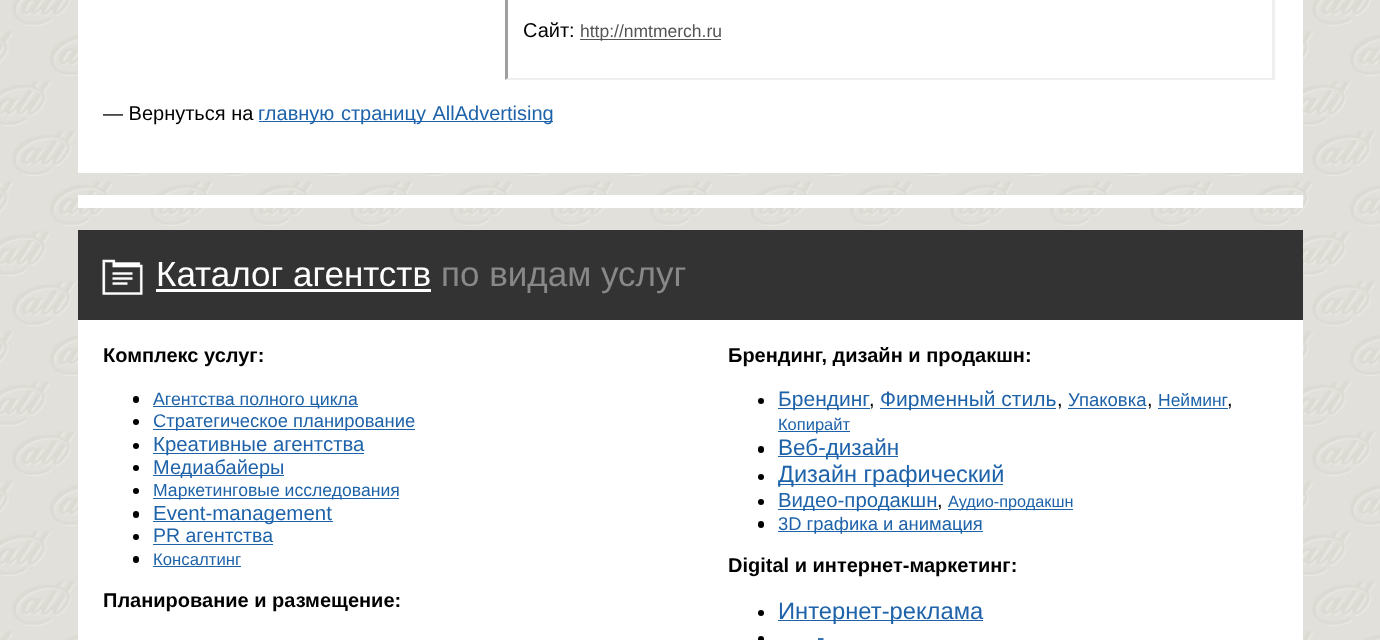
(async () => {
    const canvas = document.querySelector("canvas");
    canvas.width = 1380;
    canvas.height = 640;
    const context = canvas.getContext("2d");
    context.miterLimit = 4;
    context.fontKerning = "normal";
    function write(s, x, y, font, color) {
        context.font = font;
        context.fillStyle = color;
        context.fillText(s, x, y);
    }
    function block(x, y, w, h, color) {
        context.fillStyle = color;
        context.fillRect(x, y, w, h);
    }
    function card(x, y, w, h, r, color) {
        context.fillStyle = color;
        context.beginPath();
        context.roundRect(x, y, w, h, r);
        context.fill();
    }
    async function photo(src, x, y, w, h) {
        const img = new Image();
        img.src = src;
        await img.decode();
        context.drawImage(img, x, y, w, h);
    }

    block(0, 0, 1380, 640, "rgb(255, 255, 255)");
    await photo("media/1.png", 0, 0, 1380, 640);
    block(78, 0, 1225, 173, "rgb(255, 255, 255)");
    context.fillStyle = "rgb(239, 239, 239)";
    context.beginPath();
    context.moveTo(1275, -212);
    context.lineTo(1275, 80);
    context.lineTo(1272, 78);
    context.lineTo(1272, -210);
    context.closePath();
    context.fill();
    context.beginPath();
    context.moveTo(1275, 80);
    context.lineTo(505, 80);
    context.lineTo(508, 78);
    context.lineTo(1272, 78);
    context.closePath();
    context.fill();
    context.fillStyle = "rgb(159, 159, 159)";
    context.beginPath();
    context.moveTo(505, 80);
    context.lineTo(505, -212);
    context.lineTo(508, -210);
    context.lineTo(508, 78);
    context.closePath();
    context.fill();
    write("Сайт:", 523, 37, "20px Liberation Sans", "rgb(0, 0, 0)");
    block(580, 39, 141, 1, "rgb(85, 85, 85)");
    write("http://nmtmerch.ru", 580, 37, "17.5px Liberation Sans", "rgb(85, 85, 85)");
    write("— Вернуться на", 103, 120, "20px Liberation Sans", "rgb(0, 0, 0)");
    block(259, 121, 294, 1, "rgb(30, 99, 170)");
    context.wordSpacing = "1px";
    write("главную страницу AllAdvertising", 258, 120, "20px Liberation Sans", "rgb(30, 99, 170)");
    block(78, 195, 1225, 13, "rgb(255, 255, 255)");
    block(78, 320, 1225, 320, "rgb(255, 255, 255)");
    block(78, 230, 1225, 90, "rgb(51, 51, 51)");
    await photo("media/2.png", 102, 259, 41, 36);
    context.wordSpacing = "0px";
    write("Каталог агентств", 156, 286, "35px Liberation Sans", "rgb(255, 255, 255)");
    block(156, 289, 275, 3, "rgb(255, 255, 255)");
    write("по видам услуг", 441, 286, "35px Liberation Sans", "rgb(136, 136, 136)");
    write("Комплекс услуг:", 103, 362, "bold 20px Liberation Sans", "rgb(0, 0, 0)");
    card(133, 396, 6, 7, 3, "rgb(0, 0, 0)");
    block(153, 406, 205, 1, "rgb(30, 99, 170)");
    write("Агентства полного цикла", 153, 405, "17.75px Liberation Sans", "rgb(30, 99, 170)");
    context.fillStyle = "rgb(0, 0, 0)";
    context.beginPath();
    context.arc(136, 422, 3, 0, Math.PI * 2);
    context.fill();
    block(153, 429, 262, 1, "rgb(30, 99, 170)");
    write("Стратегическое планирование", 153, 427, "18.4px Liberation Sans", "rgb(30, 99, 170)");
    context.fillStyle = "rgb(0, 0, 0)";
    context.beginPath();
    context.arc(136, 446, 3, 0, Math.PI * 2);
    context.fill();
    block(153, 453, 211, 1, "rgb(30, 99, 170)");
    write("Креативные агентства", 153, 451, "20.4px Liberation Sans", "rgb(30, 99, 170)");
    context.fillStyle = "rgb(0, 0, 0)";
    context.beginPath();
    context.arc(136, 468, 3, 0, Math.PI * 2);
    context.fill();
    block(153, 475, 131, 1, "rgb(30, 99, 170)");
    write("Медиабайеры", 153, 474, "20px Liberation Sans", "rgb(30, 99, 170)");
    context.fillStyle = "rgb(0, 0, 0)";
    context.beginPath();
    context.arc(136, 491, 3, 0, Math.PI * 2);
    context.fill();
    block(153, 498, 246, 1, "rgb(30, 99, 170)");
    write("Маркетинговые исследования", 153, 496, "17.6px Liberation Sans", "rgb(30, 99, 170)");
    card(133, 511, 6, 7, 3, "rgb(0, 0, 0)");
    block(153, 521, 180, 1, "rgb(30, 99, 170)");
    write("Event-management", 153, 520, "20.5px Liberation Sans", "rgb(30, 99, 170)");
    context.fillStyle = "rgb(0, 0, 0)";
    context.beginPath();
    context.arc(136, 537, 3, 0, Math.PI * 2);
    context.fill();
    write("PR агентства", 153, 542, "19.5px Liberation Sans", "rgb(30, 99, 170)");
    block(153, 544, 120, 1, "rgb(30, 99, 170)");
    card(133, 556, 6, 7, 3, "rgb(0, 0, 0)");
    write("Консалтинг", 153, 565, "16.75px Liberation Sans", "rgb(30, 99, 170)");
    block(153, 566, 88, 1, "rgb(30, 99, 170)");
    write("Планирование и размещение:", 103, 607, "bold 20px Liberation Sans", "rgb(0, 0, 0)");
    write("Брендинг, дизайн и продакшн:", 728, 362, "bold 20px Liberation Sans", "rgb(0, 0, 0)");
    context.beginPath();
    context.arc(761, 401, 3, 0, Math.PI * 2);
    context.fill();
    block(778, 408, 92, 1, "rgb(30, 99, 170)");
    write("Брендинг", 778, 406, "21px Liberation Sans", "rgb(30, 99, 170)");
    block(880, 408, 176, 1, "rgb(30, 99, 170)");
    write("Фирменный стиль", 880, 406, "21px Liberation Sans", "rgb(30, 99, 170)");
    write("Упаковка", 1068, 406, "18.5px Liberation Sans", "rgb(30, 99, 170)");
    block(1068, 408, 78, 1, "rgb(30, 99, 170)");
    write("Нейминг", 1158, 406, "17.5px Liberation Sans", "rgb(30, 99, 170)");
    block(1158, 408, 70, 1, "rgb(30, 99, 170)");
    write(",", 869, 406, "20px Liberation Sans", "rgb(0, 0, 0)");
    write(",", 1057, 406, "20px Liberation Sans", "rgb(0, 0, 0)");
    write(",", 1147, 406, "20px Liberation Sans", "rgb(0, 0, 0)");
    write(",", 1227, 406, "20px Liberation Sans", "rgb(0, 0, 0)");
    block(778, 431, 72, 1, "rgb(30, 99, 170)");
    write("Копирайт", 778, 430, "16.5px Liberation Sans", "rgb(30, 99, 170)");
    card(758, 446, 6, 7, 3, "rgb(0, 0, 0)");
    block(778, 456, 120, 1, "rgb(30, 99, 170)");
    write("Веб-дизайн", 778, 455, "22.5px Liberation Sans", "rgb(30, 99, 170)");
    context.fillStyle = "rgb(0, 0, 0)";
    context.beginPath();
    context.arc(761, 477, 3, 0, Math.PI * 2);
    context.fill();
    block(778, 484, 225, 1, "rgb(30, 99, 170)");
    write("Дизайн графический", 778, 482, "23.5px Liberation Sans", "rgb(30, 99, 170)");
    context.fillStyle = "rgb(0, 0, 0)";
    context.beginPath();
    context.arc(761, 502, 3, 0, Math.PI * 2);
    context.fill();
    block(778, 509, 160, 1, "rgb(30, 99, 170)");
    write("Видео-продакшн", 778, 507, "20.4px Liberation Sans", "rgb(30, 99, 170)");
    block(948, 509, 125, 1, "rgb(30, 99, 170)");
    write("Аудио-продакшн", 948, 507, "16.25px Liberation Sans", "rgb(30, 99, 170)");
    write(",", 937, 507, "20px Liberation Sans", "rgb(0, 0, 0)");
    card(758, 521, 6, 7, 3, "rgb(0, 0, 0)");
    block(778, 531, 205, 1, "rgb(30, 99, 170)");
    write("3D графика и анимация", 778, 530, "18.4px Liberation Sans", "rgb(30, 99, 170)");
    write("Digital и интернет-маркетинг:", 728, 572, "bold 20px Liberation Sans", "rgb(0, 0, 0)");
    context.beginPath();
    context.arc(761, 613, 3, 0, Math.PI * 2);
    context.fill();
    block(778, 620, 205, 1, "rgb(30, 99, 170)");
    write("Интернет-реклама", 778, 619, "23.75px Liberation Sans", "rgb(30, 99, 170)");
    card(758, 636, 6, 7, 3, "rgb(0, 0, 0)");
    write("-", 817, 645, "22.5px Liberation Sans", "rgb(30, 99, 170)");
})();
